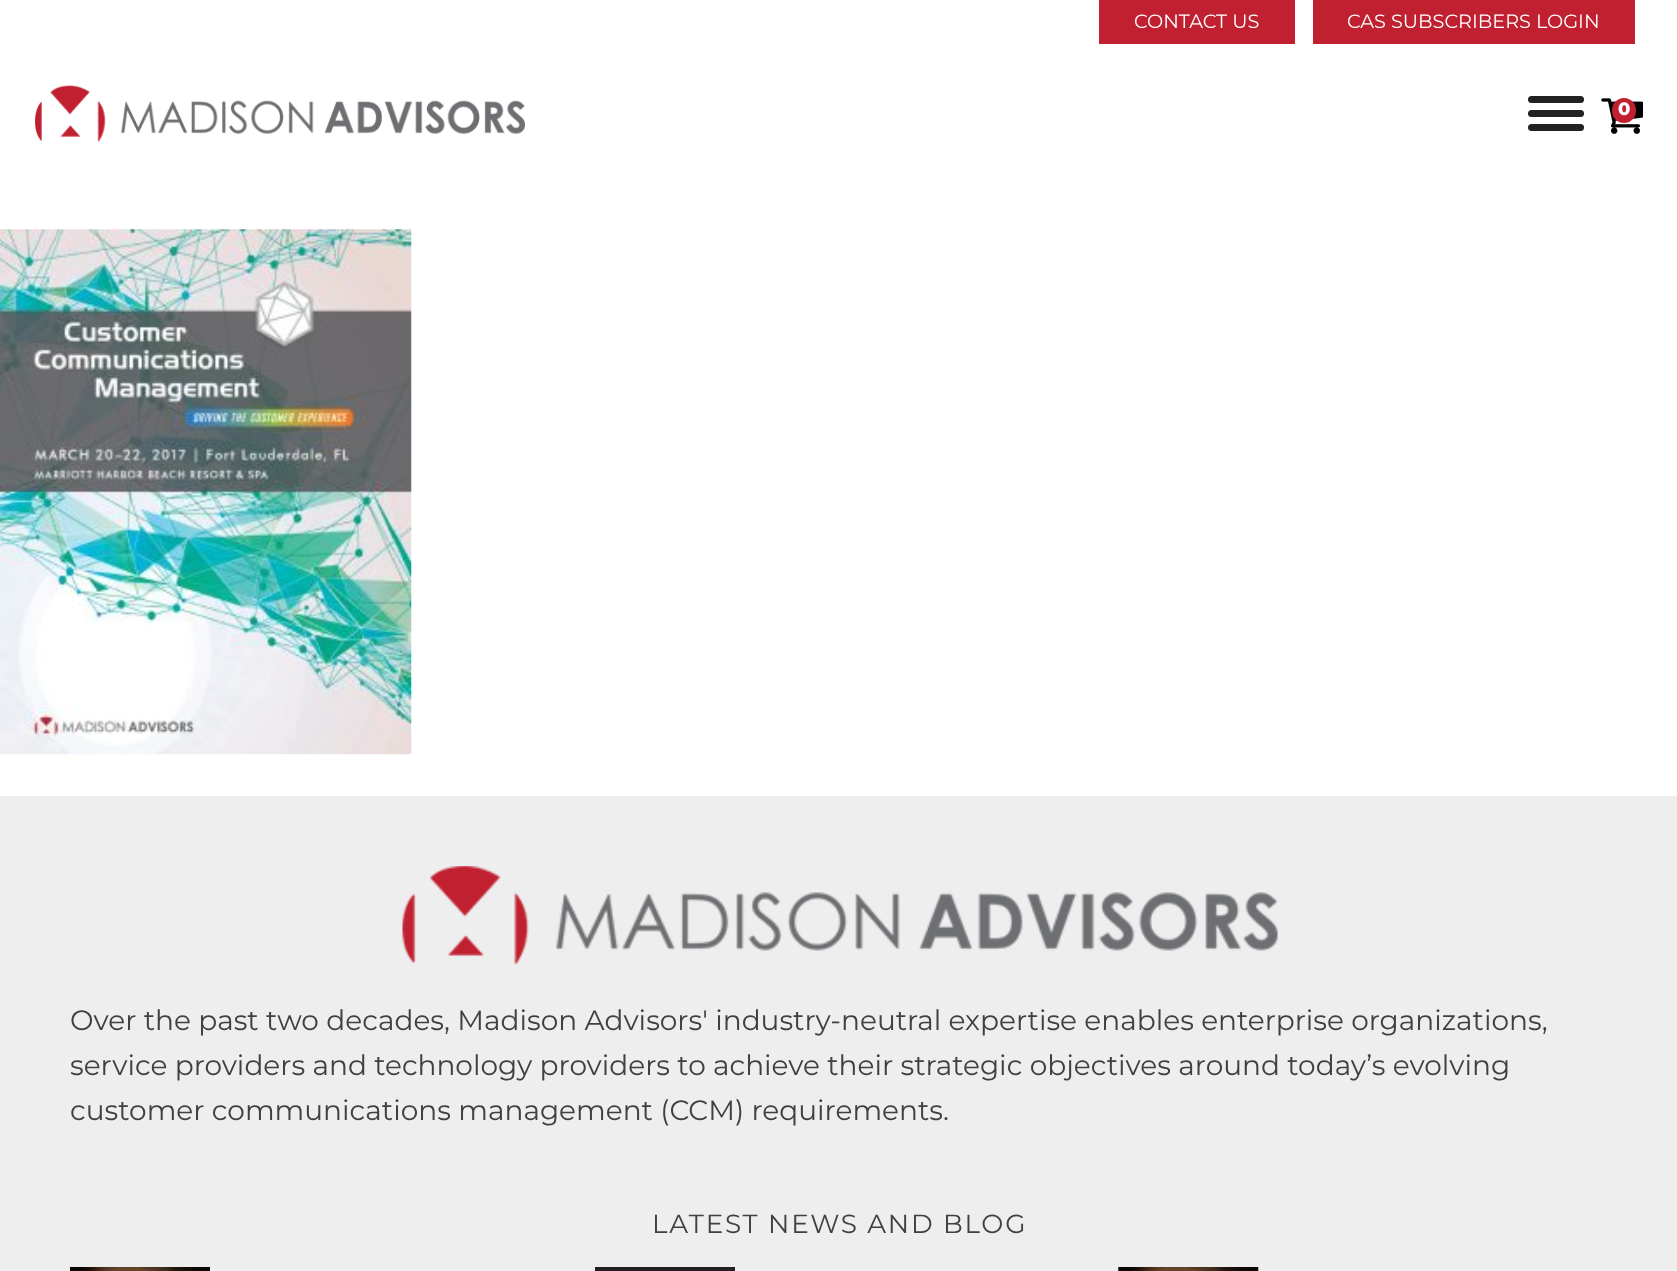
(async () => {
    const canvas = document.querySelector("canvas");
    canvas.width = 1677;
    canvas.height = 1271;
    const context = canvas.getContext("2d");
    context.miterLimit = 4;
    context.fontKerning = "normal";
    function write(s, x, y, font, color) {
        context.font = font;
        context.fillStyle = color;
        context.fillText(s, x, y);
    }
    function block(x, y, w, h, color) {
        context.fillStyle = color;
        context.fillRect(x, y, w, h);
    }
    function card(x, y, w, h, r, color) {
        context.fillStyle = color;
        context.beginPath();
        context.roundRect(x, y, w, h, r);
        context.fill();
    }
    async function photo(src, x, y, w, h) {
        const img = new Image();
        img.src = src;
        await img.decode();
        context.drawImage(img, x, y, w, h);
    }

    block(0, 0, 1677, 1271, "rgb(255, 255, 255)");
    block(1099, 0, 196, 44, "rgb(192, 32, 48)");
    write("CONTACT US", 1134, 28, "19.25px Montserrat", "rgb(255, 255, 255)");
    block(1313, 0, 322, 44, "rgb(192, 32, 48)");
    write("CAS SUBSCRIBERS LOGIN", 1347, 28, "19.25px Montserrat", "rgb(255, 255, 255)");
    await photo("media/1.png", 35, 85, 490, 57);
    card(1528, 96, 56, 7, 3.5, "rgb(34, 34, 34)");
    card(1528, 110, 56, 7, 3.5, "rgb(34, 34, 34)");
    card(1528, 124, 56, 7, 3.5, "rgb(34, 34, 34)");
    await photo("media/2.png", 1601, 98, 42, 36);
    card(1612, 98, 24, 25, 12, "rgb(192, 32, 48)");
    write("0", 1618, 115, "800 18px Montserrat", "rgb(255, 255, 255)");
    await photo("media/3.png", 0, 229, 412, 526);
    block(0, 796, 1677, 475, "rgb(238, 238, 238)");
    await photo("media/4.png", 402, 866, 876, 99);
    write("Over the past two decades, Madison Advisors' industry-neutral expertise enables enterprise organizations,", 70, 1030, "28px Montserrat", "rgb(64, 64, 64)");
    write("service providers and technology providers to achieve their strategic objectives around today’s evolving", 70, 1075, "28px Montserrat", "rgb(64, 64, 64)");
    write("customer communications management (CCM) requirements.", 70, 1120, "28px Montserrat", "rgb(64, 64, 64)");
    context.letterSpacing = "1.75px";
    write("LATEST NEWS AND BLOG", 652, 1233, "26.25px Montserrat", "rgb(64, 64, 64)");
    await photo("media/5.png", 70, 1267, 140, 4);
    block(595, 1267, 140, 4, "rgb(35, 31, 32)");
    await photo("media/6.png", 1118, 1267, 141, 4);
})();
